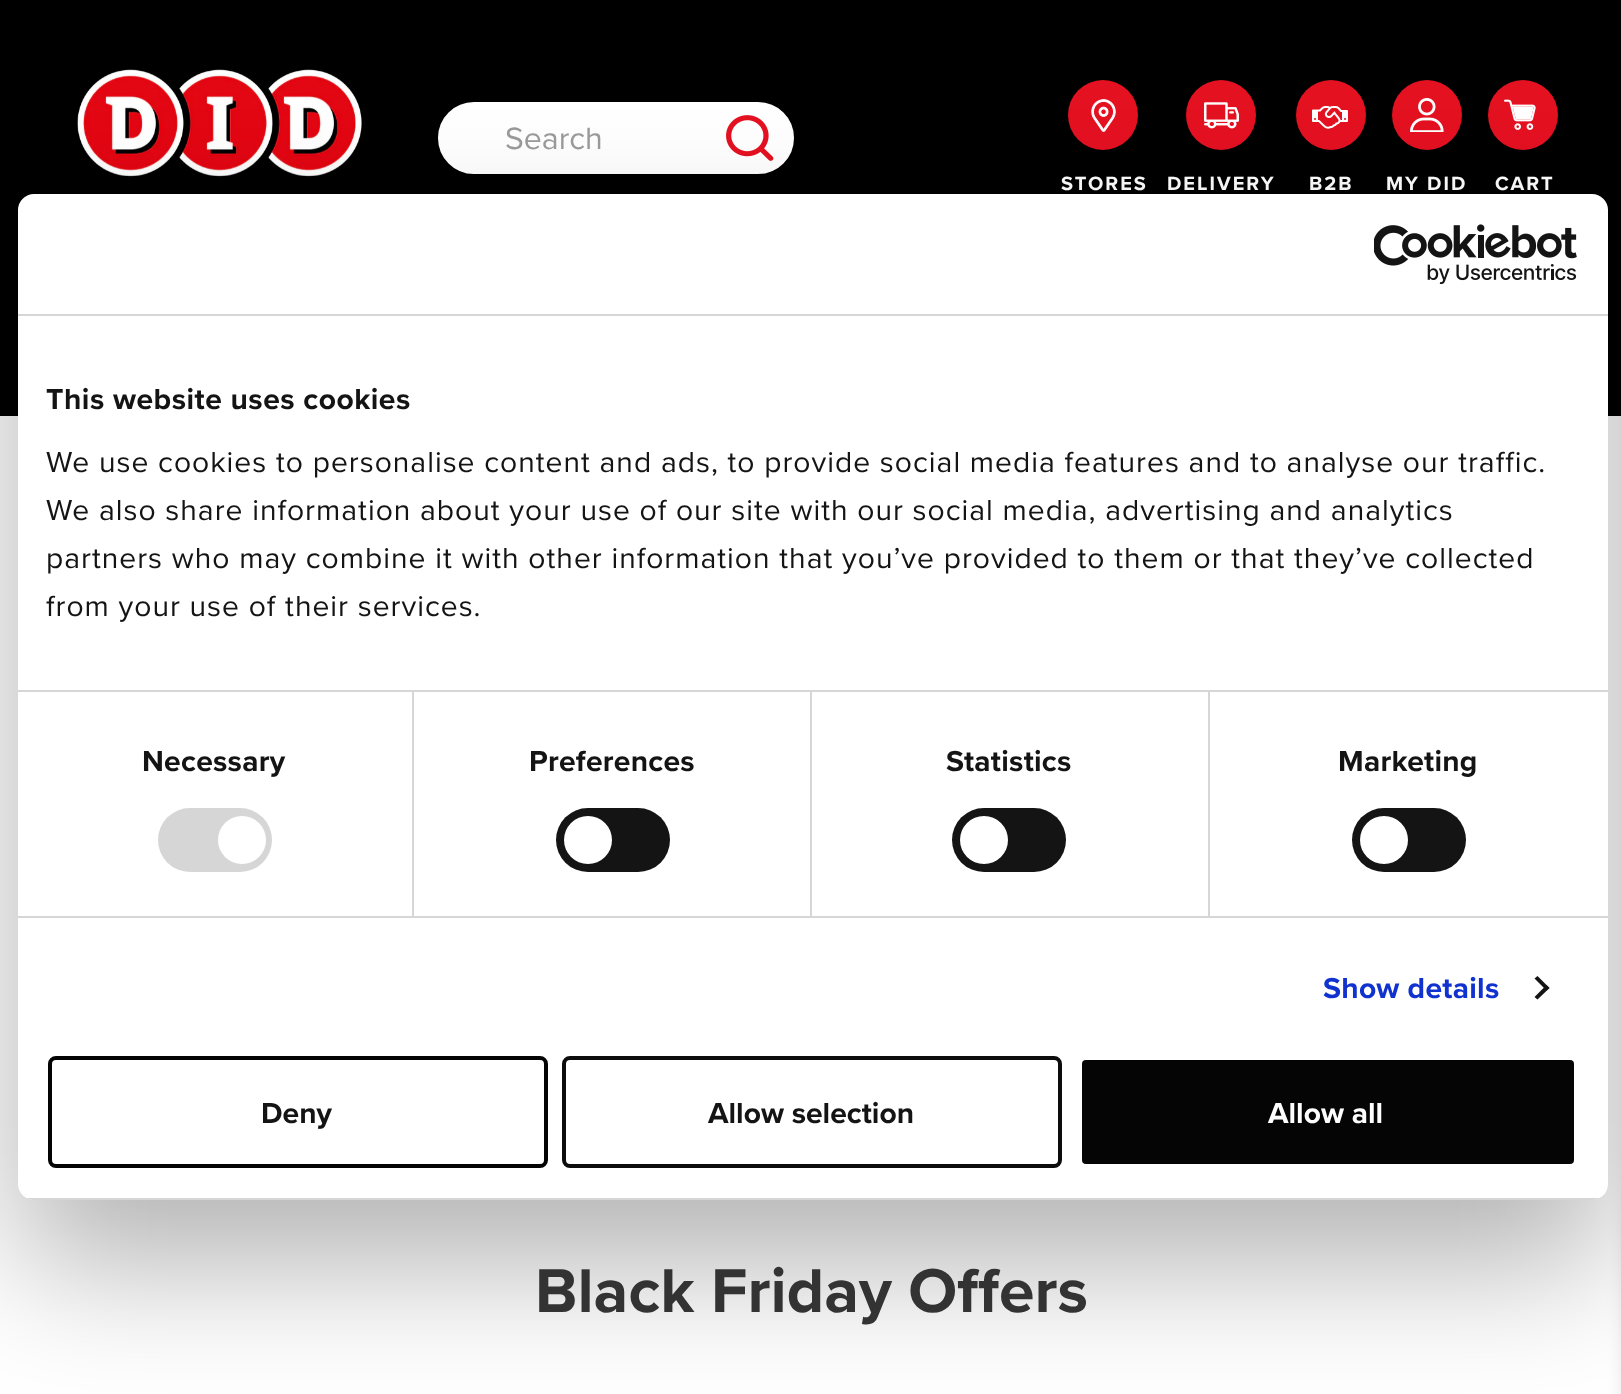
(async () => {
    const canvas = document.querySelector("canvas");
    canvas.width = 1621;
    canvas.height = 1394;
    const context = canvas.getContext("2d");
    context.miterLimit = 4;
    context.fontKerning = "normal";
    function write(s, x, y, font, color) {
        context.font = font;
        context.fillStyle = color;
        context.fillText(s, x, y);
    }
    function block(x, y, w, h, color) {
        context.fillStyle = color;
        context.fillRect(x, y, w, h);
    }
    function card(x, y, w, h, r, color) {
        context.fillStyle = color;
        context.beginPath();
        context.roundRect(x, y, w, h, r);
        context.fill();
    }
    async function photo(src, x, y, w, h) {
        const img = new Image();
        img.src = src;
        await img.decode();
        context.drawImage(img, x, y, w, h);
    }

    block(0, 0, 1621, 1394, "rgb(255, 255, 255)");
    block(0, 0, 1621, 416, "rgb(0, 0, 0)");
    await photo("media/1.png", 77, 69, 285, 115);
    context.fillStyle = "rgb(255, 255, 255)";
    context.beginPath();
    context.roundRect(439, 103, 266, 70, [35, 0, 0, 35]);
    context.fill();
    context.strokeStyle = "rgb(255, 255, 255)";
    context.lineWidth = 2;
    context.stroke();
    write("Search", 505, 149, "32px Proxima Nova", "rgb(155, 155, 155)");
    context.fillStyle = "rgb(255, 255, 255)";
    context.beginPath();
    context.roundRect(705, 103, 88, 70, [0, 35, 35, 0]);
    context.fill();
    context.stroke();
    await photo("media/2.png", 726, 115, 48, 46);
    context.fillStyle = "rgb(228, 17, 33)";
    context.beginPath();
    context.arc(1103, 115, 35, 0, Math.PI * 2);
    context.fill();
    await photo("media/3.png", 1091, 99, 25, 33);
    context.letterSpacing = "2px";
    write("STORES", 1061, 190, "bold 20px Proxima Nova", "rgb(255, 255, 255)");
    context.fillStyle = "rgb(228, 17, 33)";
    context.beginPath();
    context.arc(1221, 115, 35, 0, Math.PI * 2);
    context.fill();
    await photo("media/4.png", 1204, 102, 35, 27);
    write("DELIVERY", 1167, 190, "bold 20px Proxima Nova", "rgb(255, 255, 255)");
    context.fillStyle = "rgb(228, 17, 33)";
    context.beginPath();
    context.arc(1331, 115, 35, 0, Math.PI * 2);
    context.fill();
    await photo("media/5.png", 1312, 106, 36, 23);
    write("B2B", 1309, 190, "bold 20px Proxima Nova", "rgb(255, 255, 255)");
    context.fillStyle = "rgb(228, 17, 33)";
    context.beginPath();
    context.arc(1427, 115, 35, 0, Math.PI * 2);
    context.fill();
    await photo("media/6.png", 1410, 98, 34, 34);
    write("MY DID", 1386, 190, "bold 20px Proxima Nova", "rgb(255, 255, 255)");
    context.fillStyle = "rgb(228, 17, 33)";
    context.beginPath();
    context.arc(1523, 115, 35, 0, Math.PI * 2);
    context.fill();
    await photo("media/7.png", 1504, 99, 32, 31);
    write("CART", 1495, 190, "bold 20px Proxima Nova", "rgb(255, 255, 255)");
    context.fillStyle = "rgba(0, 0, 0, 0.3)";
    context.filter = "blur(68px)";
    context.beginPath();
    context.roundRect(18, 258, 1590, 1006, 16);
    context.fill();
    context.filter = "none";
    card(18, 194, 1590, 1006, 16, "rgb(255, 255, 255)");
    block(18, 314, 1590, 2, "rgb(214, 214, 214)");
    block(18, 690, 1590, 2, "rgb(214, 214, 214)");
    block(18, 916, 1590, 2, "rgb(214, 214, 214)");
    context.save();
    context.beginPath();
    context.roundRect(18, 194, 1590, 1006, 16);
    context.clip();
    block(18, 1198, 1590, 2, "rgb(214, 214, 214)");
    context.restore();
    context.fillStyle = "rgba(10, 10, 10, 0.1)";
    context.filter = "blur(8px)";
    context.beginPath();
    context.rect(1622, 16, 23, 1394);
    context.fill();
    context.filter = "none";
    await photo("media/8.png", 1374, 224, 203, 60);
    context.letterSpacing = "0.5px";
    write("This website uses cookies", 46, 409, "bold 30px Proxima Nova", "rgb(20, 20, 20)");
    context.letterSpacing = "1px";
    write("We use cookies to personalise content and ads, to provide social media features and to analyse our traffic.", 46, 472, "30px Proxima Nova", "rgb(20, 20, 20)");
    write("We also share information about your use of our site with our social media, advertising and analytics", 46, 520, "30px Proxima Nova", "rgb(20, 20, 20)");
    write("partners who may combine it with other information that you’ve provided to them or that they’ve collected", 46, 568, "30px Proxima Nova", "rgb(20, 20, 20)");
    write("from your use of their services.", 46, 616, "30px Proxima Nova", "rgb(20, 20, 20)");
    block(412, 692, 2, 224, "rgb(214, 214, 214)");
    context.letterSpacing = "0.25px";
    write("Necessary", 142, 771, "bold 30px Proxima Nova", "rgb(20, 20, 20)");
    card(158, 808, 114, 64, 32, "rgb(214, 214, 214)");
    context.fillStyle = "rgb(255, 255, 255)";
    context.beginPath();
    context.arc(242, 840, 24, 0, Math.PI * 2);
    context.fill();
    block(810, 692, 2, 224, "rgb(214, 214, 214)");
    write("Preferences", 529, 771, "bold 30px Proxima Nova", "rgb(20, 20, 20)");
    card(556, 808, 114, 64, 32, "rgb(20, 20, 20)");
    context.fillStyle = "rgb(255, 255, 255)";
    context.beginPath();
    context.arc(588, 840, 24, 0, Math.PI * 2);
    context.fill();
    block(1208, 692, 2, 224, "rgb(214, 214, 214)");
    write("Statistics", 946, 771, "bold 30px Proxima Nova", "rgb(20, 20, 20)");
    card(952, 808, 114, 64, 32, "rgb(20, 20, 20)");
    context.fillStyle = "rgb(255, 255, 255)";
    context.beginPath();
    context.arc(984, 840, 24, 0, Math.PI * 2);
    context.fill();
    write("Marketing", 1338, 771, "bold 30px Proxima Nova", "rgb(20, 20, 20)");
    card(1352, 808, 114, 64, 32, "rgb(20, 20, 20)");
    context.fillStyle = "rgb(255, 255, 255)";
    context.beginPath();
    context.arc(1384, 840, 24, 0, Math.PI * 2);
    context.fill();
    write("Show details", 1323, 998, "bold 30px Proxima Nova", "rgb(16, 50, 207)");
    context.fillStyle = "rgb(20, 20, 20)";
    context.beginPath();
    context.moveTo(1537.5, 976);
    context.lineTo(1549.5, 988);
    context.lineTo(1546.5, 990.5);
    context.lineTo(1534.5, 978.5);
    context.closePath();
    context.fill();
    context.beginPath();
    context.moveTo(1546.5, 985);
    context.lineTo(1549.5, 988);
    context.lineTo(1537.5, 999.5);
    context.lineTo(1534.5, 997);
    context.closePath();
    context.fill();
    context.beginPath();
    context.roundRect(50, 1058, 496, 108, 6);
    context.strokeStyle = "rgb(3, 3, 3)";
    context.lineWidth = 4;
    context.stroke();
    context.letterSpacing = "0px";
    write("Deny", 261, 1123, "bold 30px Proxima Nova", "rgb(20, 20, 20)");
    context.beginPath();
    context.roundRect(564, 1058, 496, 108, 6);
    context.strokeStyle = "rgb(13, 12, 12)";
    context.stroke();
    write("Allow selection", 708, 1123, "bold 30px Proxima Nova", "rgb(20, 20, 20)");
    context.fillStyle = "rgb(5, 5, 5)";
    context.beginPath();
    context.roundRect(1080, 1058, 496, 108, 6);
    context.fill();
    context.strokeStyle = "rgb(255, 255, 255)";
    context.stroke();
    write("Allow all", 1268, 1123, "bold 30px Proxima Nova", "rgb(255, 255, 255)");
    write("Black Friday Offers", 535, 1312, "bold 64px Proxima Nova", "rgb(51, 51, 51)");
})();
